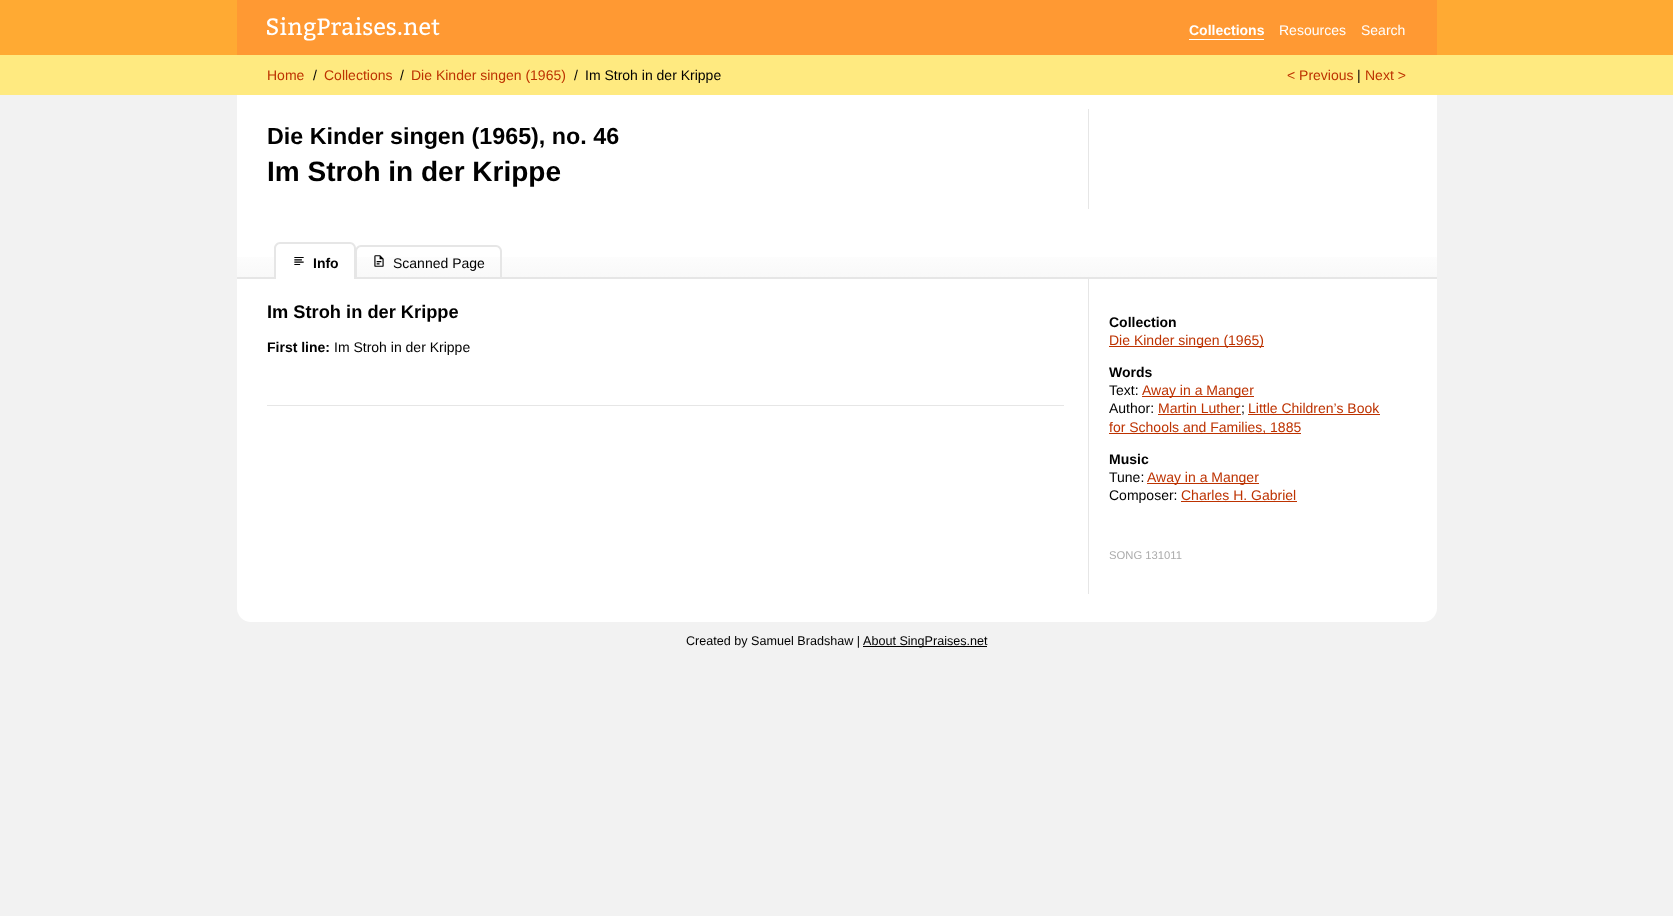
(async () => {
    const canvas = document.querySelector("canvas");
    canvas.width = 1673;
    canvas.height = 916;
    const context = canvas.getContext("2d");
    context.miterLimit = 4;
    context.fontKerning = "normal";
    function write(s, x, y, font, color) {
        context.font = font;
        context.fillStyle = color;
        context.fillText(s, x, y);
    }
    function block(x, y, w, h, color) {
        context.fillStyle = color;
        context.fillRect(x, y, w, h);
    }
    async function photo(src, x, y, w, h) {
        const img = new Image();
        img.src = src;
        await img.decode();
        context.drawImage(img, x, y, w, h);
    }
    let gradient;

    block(0, 0, 1673, 916, "rgb(242, 242, 242)");
    block(0, 0, 1673, 55, "rgb(255, 170, 51)");
    block(237, 0, 1200, 55, "rgb(255, 153, 51)");
    await photo("media/1.png", 267, 17, 173, 24);
    block(1189, 39, 75, 1, "rgb(255, 255, 255)");
    write("Collections", 1189, 35, "bold 14px Liberation Sans", "rgb(255, 255, 255)");
    write("Resources", 1279, 35, "14px Liberation Sans", "rgb(255, 255, 255)");
    write("Search", 1361, 35, "14px Liberation Sans", "rgb(255, 255, 255)");
    block(0, 55, 1673, 40, "rgb(255, 234, 128)");
    write("Home", 267, 80, "14px Liberation Sans", "rgb(189, 50, 0)");
    write("/", 313, 80, "14px Liberation Sans", "rgb(0, 0, 0)");
    write("Collections", 324, 80, "14px Liberation Sans", "rgb(189, 50, 0)");
    write("/", 400, 80, "14px Liberation Sans", "rgb(0, 0, 0)");
    write("Die Kinder singen (1965)", 411, 80, "14px Liberation Sans", "rgb(189, 50, 0)");
    write("/", 574, 80, "14px Liberation Sans", "rgb(0, 0, 0)");
    write("Im Stroh in der Krippe", 585, 80, "14px Liberation Sans", "rgb(0, 0, 0)");
    write("< Previous", 1287, 80, "14px Liberation Sans", "rgb(189, 50, 0)");
    write("|", 1357, 80, "14px Liberation Sans", "rgb(0, 0, 0)");
    write("Next >", 1365, 80, "14px Liberation Sans", "rgb(189, 50, 0)");
    context.fillStyle = "rgb(255, 255, 255)";
    context.beginPath();
    context.roundRect(237, 95, 1200, 527, [0, 0, 14, 14]);
    context.fill();
    write("Die Kinder singen (1965), no. 46", 267, 144, "bold 23.3px Liberation Sans", "rgb(0, 0, 0)");
    write("Im Stroh in der Krippe", 267, 181, "bold 28px Liberation Sans", "rgb(0, 0, 0)");
    block(1088, 109, 1, 100, "rgb(230, 230, 230)");
    gradient = context.createLinearGradient(837, 228, 837, 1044);
    gradient.addColorStop(0.02, "rgb(255, 255, 255)");
    gradient.addColorStop(1, "rgb(103, 103, 103)");
    context.fillStyle = gradient;
    context.fillRect(237, 257, 1200, 20);
    block(237, 277, 1200, 2, "rgb(230, 230, 230)");
    context.fillStyle = "rgb(255, 255, 255)";
    context.beginPath();
    context.roundRect(276, 244, 78, 35, [4, 4, 0, 0]);
    context.fill();
    context.fillStyle = "rgb(230, 230, 230)";
    context.beginPath();
    context.moveTo(280, 242);
    context.lineTo(350, 242);
    context.bezierCurveTo(353, 242, 356, 245, 356, 248);
    context.lineTo(356, 279);
    context.lineTo(274, 279);
    context.lineTo(274, 248);
    context.bezierCurveTo(274, 245, 277, 242, 280, 242);
    context.closePath();
    context.moveTo(280, 244);
    context.lineTo(350, 244);
    context.bezierCurveTo(352, 244, 354, 246, 354, 248);
    context.lineTo(354, 279);
    context.lineTo(276, 279);
    context.lineTo(276, 248);
    context.bezierCurveTo(276, 246, 278, 244, 280, 244);
    context.closePath();
    context.fill("evenodd");
    await photo("media/2.png", 294, 257, 10, 8);
    write("Info", 313, 268, "bold 14px Liberation Sans", "rgb(0, 0, 0)");
    context.fillStyle = "rgb(230, 230, 230)";
    context.beginPath();
    context.moveTo(361, 245);
    context.lineTo(496, 245);
    context.bezierCurveTo(499, 245, 502, 248, 502, 251);
    context.lineTo(502, 279);
    context.lineTo(355, 279);
    context.lineTo(355, 251);
    context.bezierCurveTo(355, 248, 358, 245, 361, 245);
    context.closePath();
    context.moveTo(361, 247);
    context.lineTo(496, 247);
    context.bezierCurveTo(498, 247, 500, 249, 500, 251);
    context.lineTo(500, 279);
    context.lineTo(357, 279);
    context.lineTo(357, 251);
    context.bezierCurveTo(357, 249, 359, 247, 361, 247);
    context.closePath();
    context.fill("evenodd");
    await photo("media/3.png", 374, 255, 10, 12);
    write("Scanned Page", 393, 268, "14px Liberation Sans", "rgb(0, 0, 0)");
    write("Im Stroh in der Krippe", 267, 318, "bold 18.25px Liberation Sans", "rgb(0, 0, 0)");
    write("First line:", 267, 352, "bold 14px Liberation Sans", "rgb(0, 0, 0)");
    write("Im Stroh in der Krippe", 334, 352, "14px Liberation Sans", "rgb(0, 0, 0)");
    block(267, 405, 797, 1, "rgb(230, 230, 230)");
    block(1088, 279, 1, 315, "rgb(230, 230, 230)");
    write("Collection", 1109, 327, "bold 14px Liberation Sans", "rgb(0, 0, 0)");
    block(1109, 346, 155, 1, "rgb(189, 50, 0)");
    write("Die Kinder singen (1965)", 1109, 345, "14px Liberation Sans", "rgb(189, 50, 0)");
    write("Words", 1109, 377, "bold 14px Liberation Sans", "rgb(0, 0, 0)");
    write("Text:", 1109, 395, "14px Liberation Sans", "rgb(0, 0, 0)");
    block(1142, 396, 112, 1, "rgb(189, 50, 0)");
    write("Away in a Manger", 1142, 395, "14px Liberation Sans", "rgb(189, 50, 0)");
    write("Author:", 1109, 413, "14px Liberation Sans", "rgb(0, 0, 0)");
    write("Martin Luther", 1158, 413, "14px Liberation Sans", "rgb(189, 50, 0)");
    write(";", 1241, 413, "14px Liberation Sans", "rgb(0, 0, 0)");
    block(1158, 414, 83, 1, "rgb(189, 50, 0)");
    block(1248, 414, 132, 1, "rgb(189, 50, 0)");
    write("Little Children’s Book", 1248, 413, "14px Liberation Sans", "rgb(189, 50, 0)");
    block(1109, 433, 192, 1, "rgb(189, 50, 0)");
    write("for Schools and Families, 1885", 1109, 432, "14px Liberation Sans", "rgb(189, 50, 0)");
    write("Music", 1109, 464, "bold 14px Liberation Sans", "rgb(0, 0, 0)");
    write("Tune:", 1109, 482, "14px Liberation Sans", "rgb(0, 0, 0)");
    block(1147, 483, 112, 1, "rgb(189, 50, 0)");
    write("Away in a Manger", 1147, 482, "14px Liberation Sans", "rgb(189, 50, 0)");
    write("Composer:", 1109, 500, "14px Liberation Sans", "rgb(0, 0, 0)");
    write("Charles H. Gabriel", 1181, 500, "14px Liberation Sans", "rgb(189, 50, 0)");
    block(1181, 501, 116, 1, "rgb(189, 50, 0)");
    write("SONG 131011", 1109, 559, "11.25px Liberation Sans", "rgb(171, 171, 171)");
    write("Created by Samuel Bradshaw |", 686, 645, "12.6px Liberation Sans", "rgb(0, 0, 0)");
    block(863, 646, 124, 1, "rgb(0, 0, 0)");
    write("About SingPraises.net", 863, 645, "12.6px Liberation Sans", "rgb(0, 0, 0)");
})();
